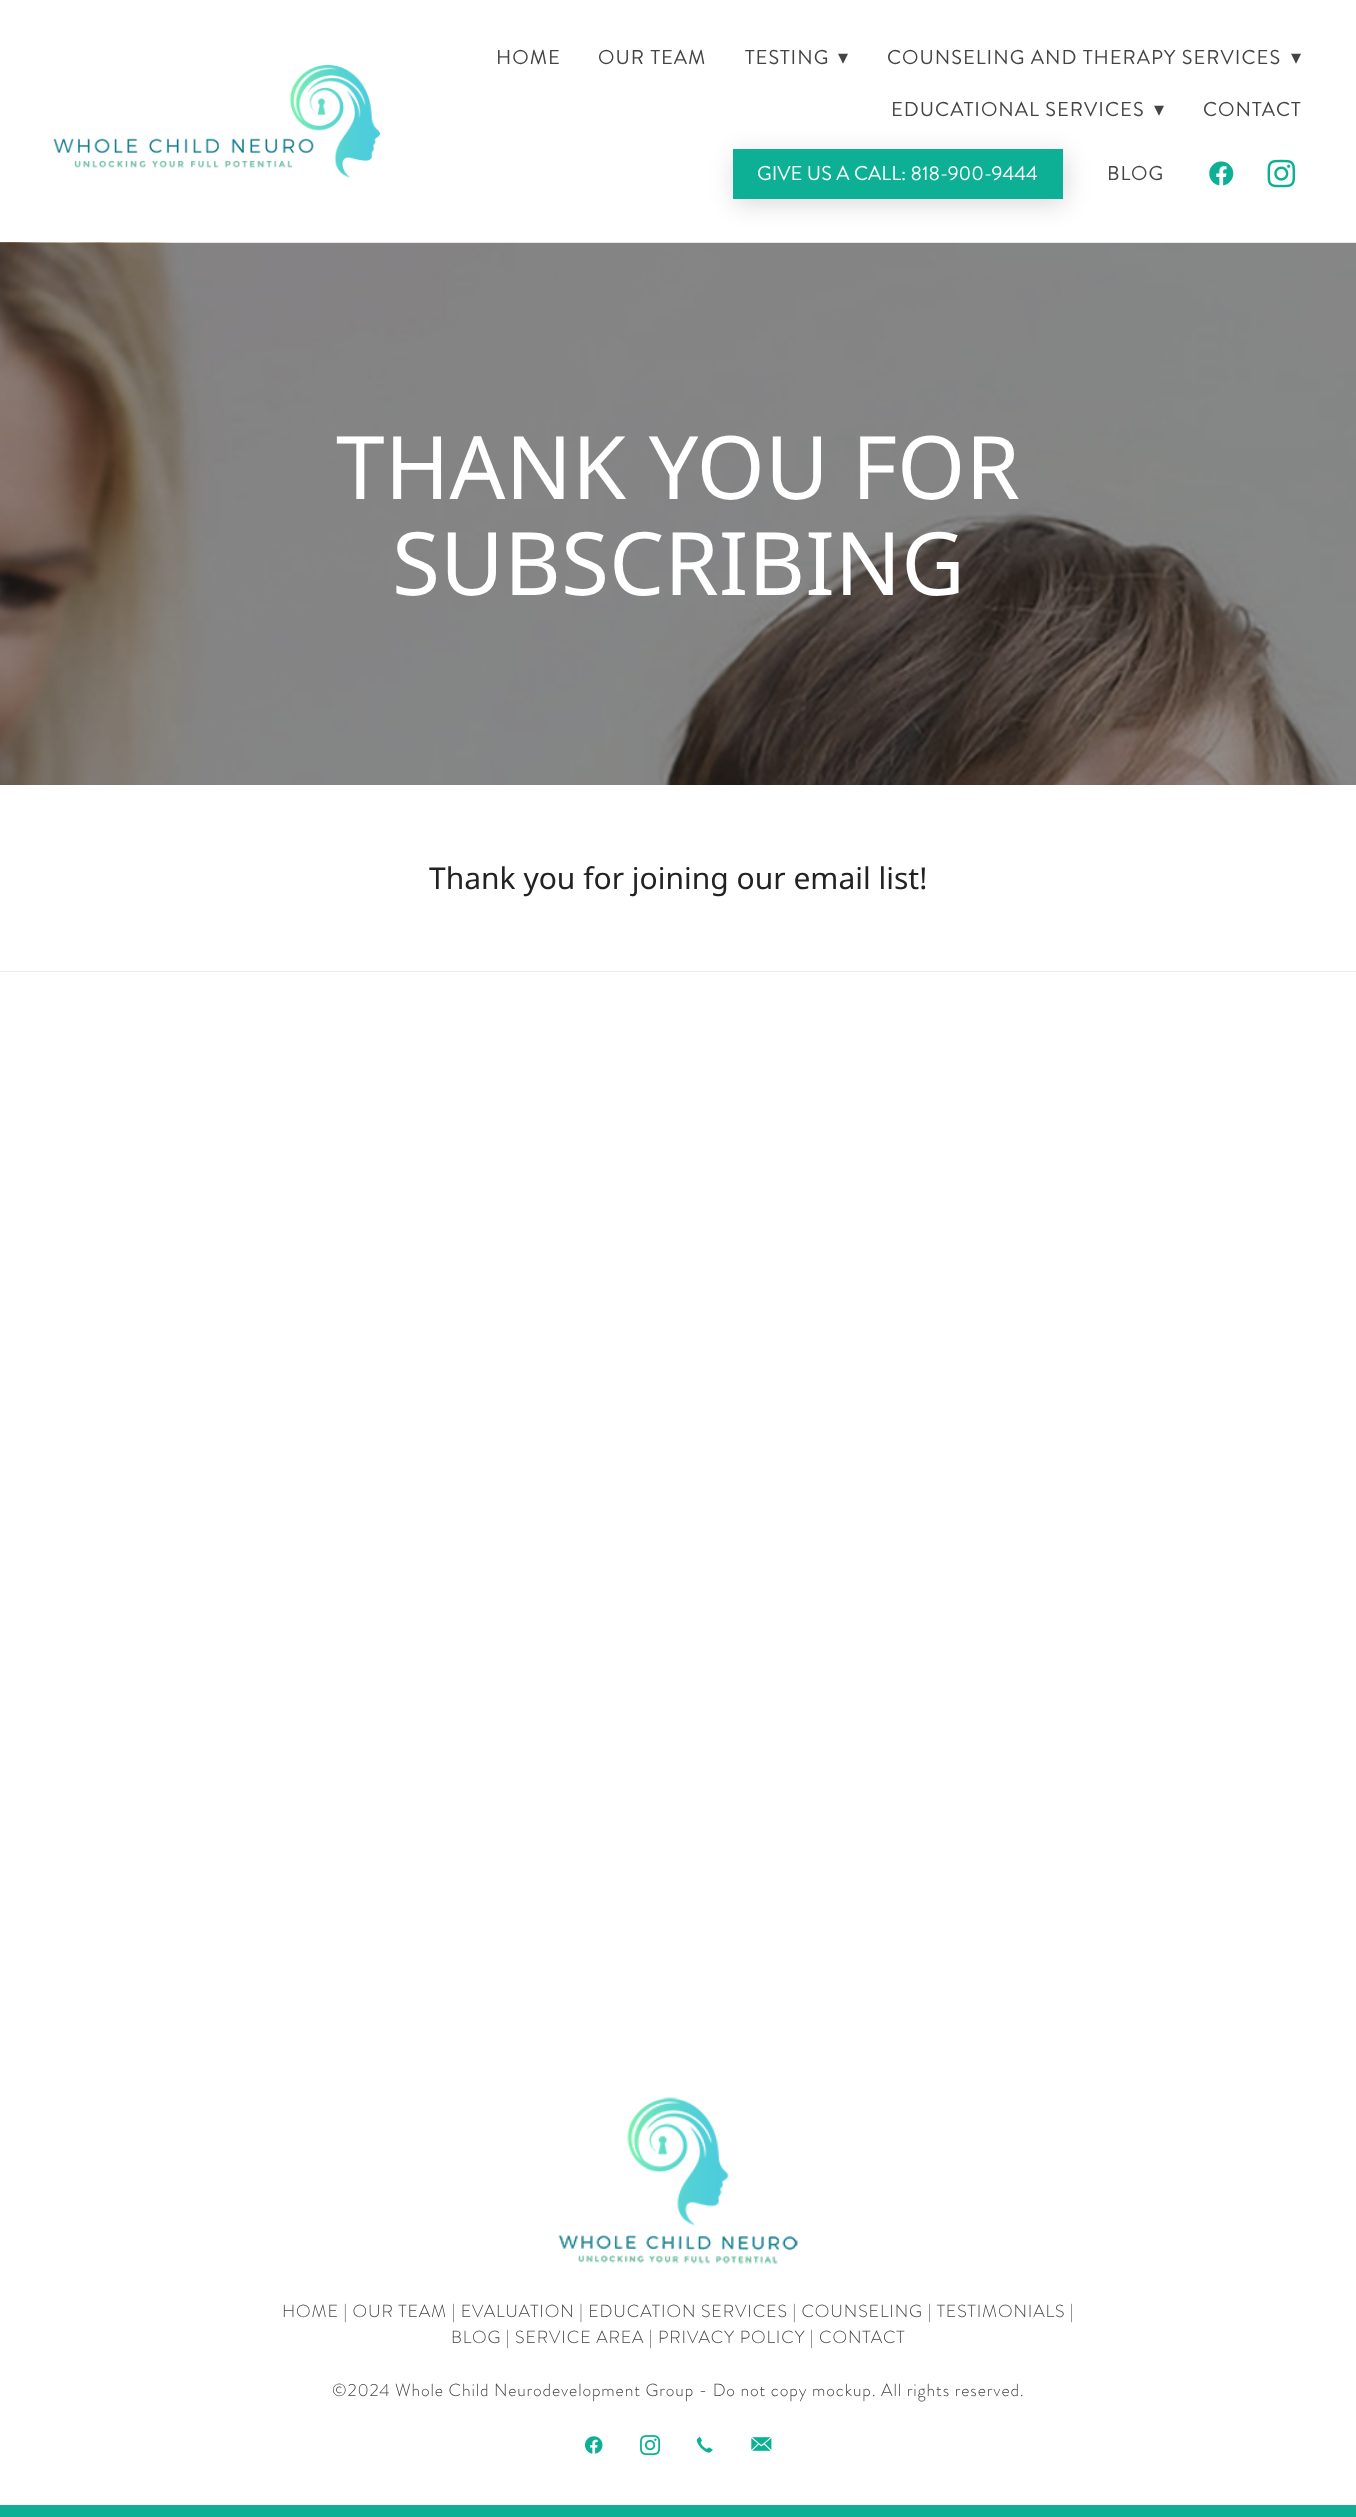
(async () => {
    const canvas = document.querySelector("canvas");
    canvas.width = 1356;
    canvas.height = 2517;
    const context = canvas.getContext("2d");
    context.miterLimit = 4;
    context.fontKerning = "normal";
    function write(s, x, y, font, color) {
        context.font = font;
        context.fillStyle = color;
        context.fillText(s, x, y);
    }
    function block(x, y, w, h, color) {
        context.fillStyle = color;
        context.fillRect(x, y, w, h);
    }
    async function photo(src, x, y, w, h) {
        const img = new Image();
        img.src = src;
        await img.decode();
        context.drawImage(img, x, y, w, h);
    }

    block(0, 0, 1356, 2517, "rgb(255, 255, 255)");
    await photo("media/1.png", 53, 65, 327, 113);
    context.letterSpacing = "1px";
    write("HOME", 496, 64, "20px Brandon Grotesque", "rgb(68, 68, 68)");
    write("OUR TEAM", 598, 64, "20px Brandon Grotesque", "rgb(68, 68, 68)");
    write("TESTING", 745, 64, "20px Brandon Grotesque", "rgb(68, 68, 68)");
    write("▾", 838, 64, "20px DejaVu Sans", "rgb(68, 68, 68)");
    write("COUNSELING AND THERAPY SERVICES", 887, 64, "20px Brandon Grotesque", "rgb(68, 68, 68)");
    write("▾", 1291, 64, "20px DejaVu Sans", "rgb(68, 68, 68)");
    write("EDUCATIONAL SERVICES", 891, 116, "20px Brandon Grotesque", "rgb(68, 68, 68)");
    write("▾", 1154, 116, "20px DejaVu Sans", "rgb(68, 68, 68)");
    write("CONTACT", 1203, 116, "20px Brandon Grotesque", "rgb(68, 68, 68)");
    await photo("media/4.png", 0, 242, 1356, 543);
    context.fillStyle = "rgba(0, 0, 0, 0.15)";
    context.filter = "blur(12.5px)";
    context.beginPath();
    context.rect(735, 154, 330, 50);
    context.fill();
    context.filter = "none";
    block(733, 149, 330, 50, "rgb(13, 176, 148)");
    context.letterSpacing = "0px";
    write("GIVE US A CALL: 818-900-9444", 757, 180, "20px Brandon Grotesque", "rgb(255, 255, 255)");
    context.letterSpacing = "1px";
    write("BLOG", 1107, 180, "20px Brandon Grotesque", "rgb(68, 68, 68)");
    await photo("media/2.png", 1209, 161, 25, 25);
    await photo("media/3.png", 1267, 159, 29, 29);
    context.letterSpacing = "0px";
    write("THANK YOU FOR", 336, 499, "87.5px Noto Sans", "rgb(255, 255, 255)");
    write("SUBSCRIBING", 392, 595, "87.5px Noto Sans", "rgb(255, 255, 255)");
    block(0, 971, 1356, 1, "rgb(235, 235, 235)");
    write("Thank you for joining our email list!", 429, 889, "30px Noto Sans", "rgb(34, 34, 34)");
    block(0, 2505, 1356, 12, "rgb(13, 176, 148)");
    await photo("media/5.png", 558, 2097, 240, 167);
    context.letterSpacing = "0.88px";
    write("HOME | OUR TEAM | EVALUATION | EDUCATION SERVICES | COUNSELING | TESTIMONIALS |", 282, 2317, "300 17.5px Brandon Grotesque", "rgb(68, 68, 68)");
    write("BLOG | SERVICE AREA | PRIVACY POLICY | CONTACT", 451, 2343, "300 17.5px Brandon Grotesque", "rgb(68, 68, 68)");
    write("©2024 Whole Child Neurodevelopment Group - Do not copy mockup. All rights reserved.", 332, 2396, "300 17.5px Brandon Grotesque", "rgb(68, 68, 68)");
    await photo("media/6.png", 585, 2436, 18, 18);
    await photo("media/7.png", 640, 2435, 21, 21);
    await photo("media/8.png", 696, 2436, 17, 17);
    await photo("media/9.png", 751, 2437, 21, 14);
})();
